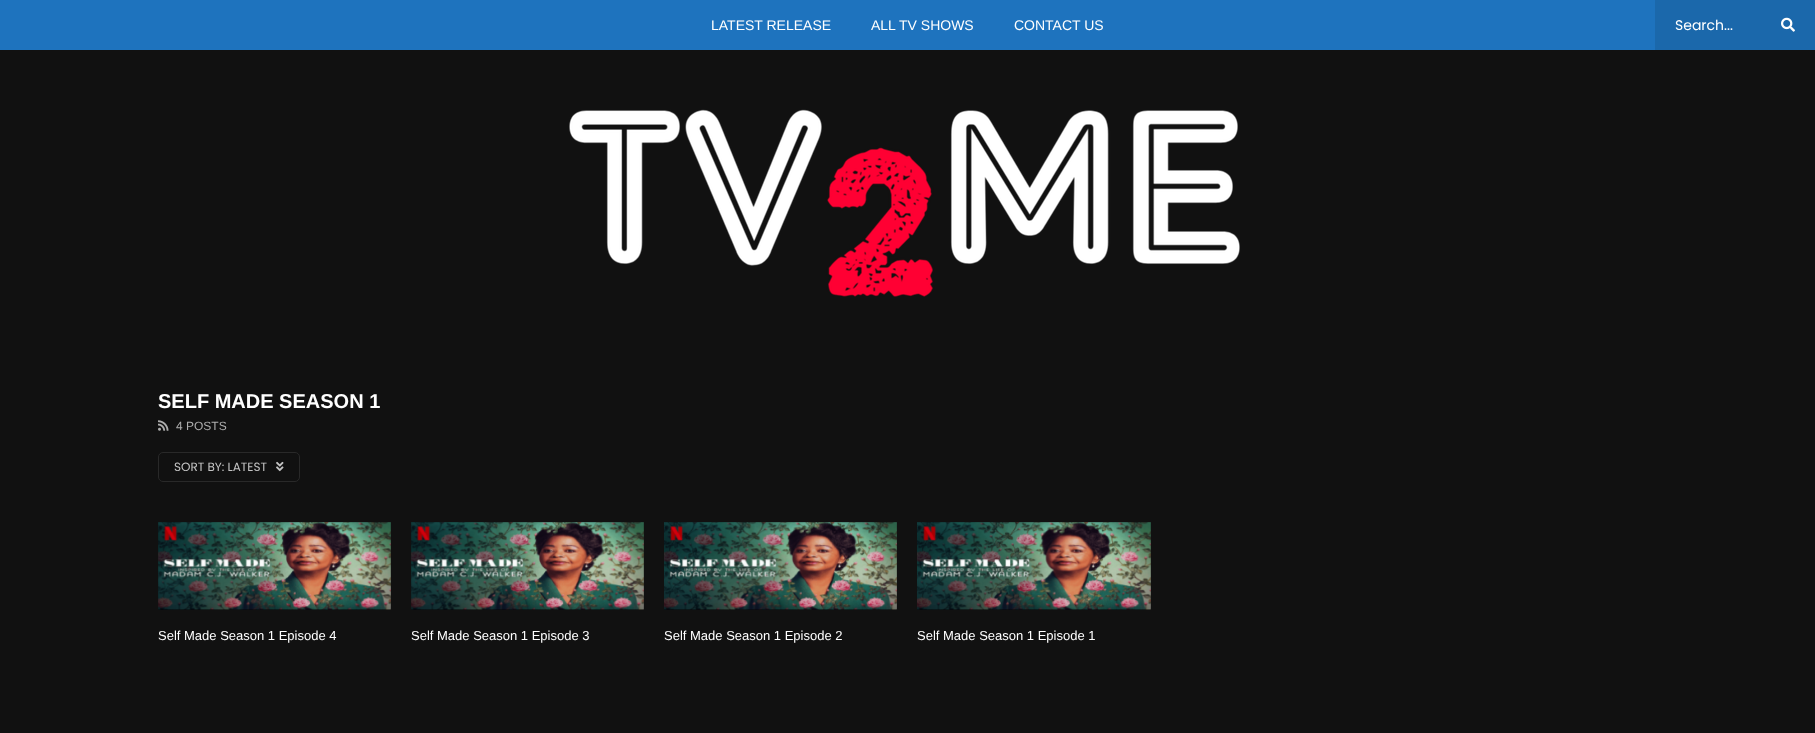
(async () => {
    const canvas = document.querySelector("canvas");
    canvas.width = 1815;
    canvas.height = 733;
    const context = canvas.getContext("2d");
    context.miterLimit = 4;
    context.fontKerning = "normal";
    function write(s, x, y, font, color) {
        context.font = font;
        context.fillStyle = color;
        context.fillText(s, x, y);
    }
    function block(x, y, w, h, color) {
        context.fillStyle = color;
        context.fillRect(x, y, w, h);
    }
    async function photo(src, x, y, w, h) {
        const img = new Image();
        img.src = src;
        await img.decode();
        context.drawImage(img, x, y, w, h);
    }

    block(0, 0, 1815, 733, "rgb(17, 17, 17)");
    block(0, 0, 1655, 50, "rgb(30, 115, 190)");
    write("LATEST RELEASE", 711, 30, "14px Liberation Sans", "rgb(255, 255, 255)");
    write("ALL TV SHOWS", 871, 30, "14px Liberation Sans", "rgb(255, 255, 255)");
    write("CONTACT US", 1014, 30, "14px Liberation Sans", "rgb(255, 255, 255)");
    block(1655, 0, 160, 50, "rgb(27, 104, 171)");
    write("Search...", 1675, 30, "14px Poppins", "rgb(255, 255, 255)");
    await photo("media/1.png", 1781, 17, 14, 15);
    await photo("media/2.png", 569, 109, 671, 188);
    write("SELF MADE SEASON 1", 158, 408, "bold 20px Liberation Sans", "rgb(255, 255, 255)");
    await photo("media/3.png", 158, 420, 11, 11);
    write("4 POSTS", 176, 430, "12px Liberation Sans", "rgb(174, 174, 174)");
    context.beginPath();
    context.roundRect(158.5, 452.5, 141, 29, 4.5);
    context.strokeStyle = "rgb(41, 41, 41)";
    context.stroke();
    write("SORT BY: LATEST", 174, 471, "12px Poppins", "rgb(196, 196, 196)");
    await photo("media/4.png", 276, 461, 8, 11);
    await photo("media/5.png", 158, 522, 233, 88);
    write("Self Made Season 1 Episode 4", 158, 640, "13px Liberation Sans", "rgb(255, 255, 255)");
    await photo("media/5.png", 411, 522, 233, 88);
    write("Self Made Season 1 Episode 3", 411, 640, "13px Liberation Sans", "rgb(255, 255, 255)");
    await photo("media/6.png", 664, 522, 233, 88);
    write("Self Made Season 1 Episode 2", 664, 640, "13px Liberation Sans", "rgb(255, 255, 255)");
    await photo("media/7.png", 917, 522, 234, 88);
    write("Self Made Season 1 Episode 1", 917, 640, "13px Liberation Sans", "rgb(255, 255, 255)");
})();
